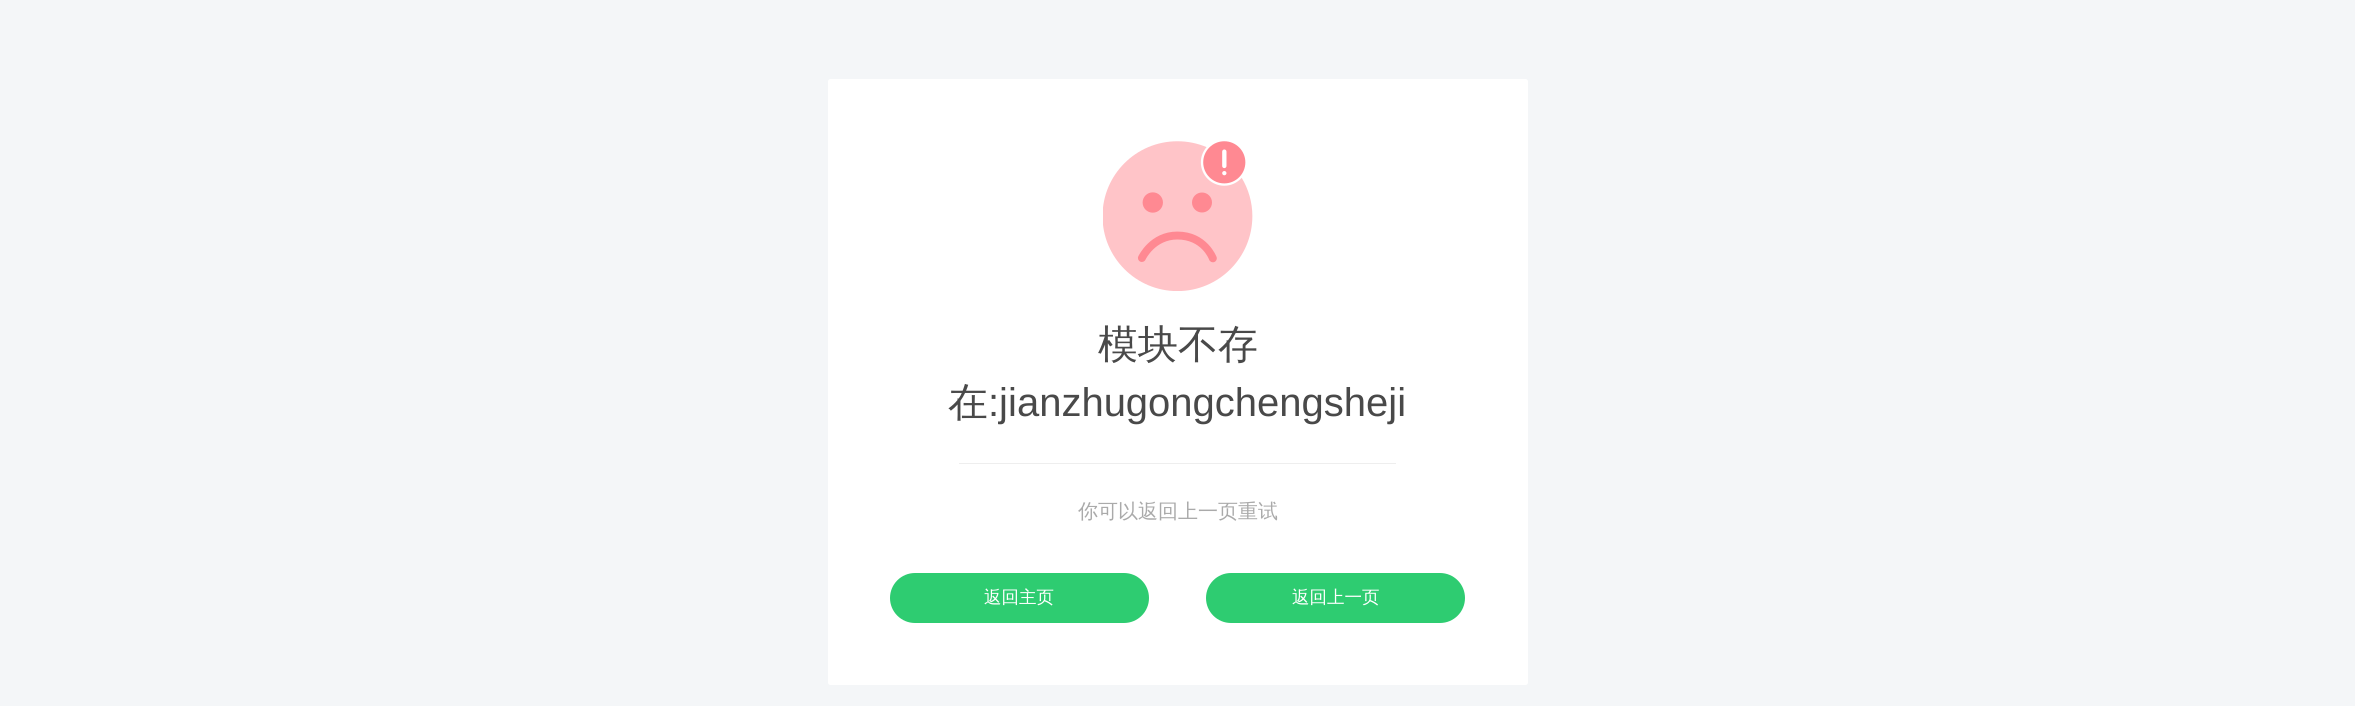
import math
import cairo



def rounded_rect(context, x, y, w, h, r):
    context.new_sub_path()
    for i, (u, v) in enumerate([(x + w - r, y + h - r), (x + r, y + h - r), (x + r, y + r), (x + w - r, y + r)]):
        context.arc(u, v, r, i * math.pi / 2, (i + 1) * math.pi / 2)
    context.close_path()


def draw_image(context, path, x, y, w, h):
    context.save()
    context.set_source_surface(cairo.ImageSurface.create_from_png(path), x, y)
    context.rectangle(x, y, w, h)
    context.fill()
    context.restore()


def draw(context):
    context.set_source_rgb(244 / 255, 246 / 255, 248 / 255)
    context.paint()
    context.set_source_rgb(1, 1, 1)
    rounded_rect(context, 828, 79, 700, 606, 2.5)
    context.fill()
    draw_image(context, "images/1.png", 1103, 141, 150, 150)
    context.set_source_rgb(238 / 255, 238 / 255, 238 / 255)
    context.rectangle(959, 463, 437, 1)
    context.fill()
    context.set_source_rgb(46 / 255, 204 / 255, 113 / 255)
    rounded_rect(context, 890, 573, 259, 50, 25)
    context.fill()
    rounded_rect(context, 1206, 573, 259, 50, 25)
    context.fill()
    context.select_font_face("WenQuanYi Zen Hei Medium")
    context.set_font_size(40)
    context.set_source_rgb(73 / 255, 73 / 255, 73 / 255)
    context.move_to(1098, 358)
    context.show_text("模块不存")
    context.move_to(948, 416)
    context.show_text("在")
    context.select_font_face("Liberation Sans")
    context.move_to(988, 416)
    context.show_text(":jianzhugongchengsheji")
    context.select_font_face("WenQuanYi Zen Hei Medium")
    context.set_font_size(20)
    context.set_source_rgb(170 / 255, 170 / 255, 170 / 255)
    context.move_to(1078, 518)
    context.show_text("你可以返回上一页重试")
    context.set_font_size(17.5)
    context.set_source_rgb(1, 1, 1)
    context.move_to(984, 603)
    context.show_text("返回主页")
    context.move_to(1292, 603)
    context.show_text("返回上一页")


surface = cairo.ImageSurface(cairo.Format.RGB24, 2355, 706)
context = cairo.Context(surface)
options = cairo.FontOptions()
options.set_hint_metrics(cairo.HintMetrics.OFF)
options.set_hint_style(cairo.HintStyle.NONE)
context.set_font_options(options)
context.set_miter_limit(4)
draw(context)
surface.write_to_png("out.png")
